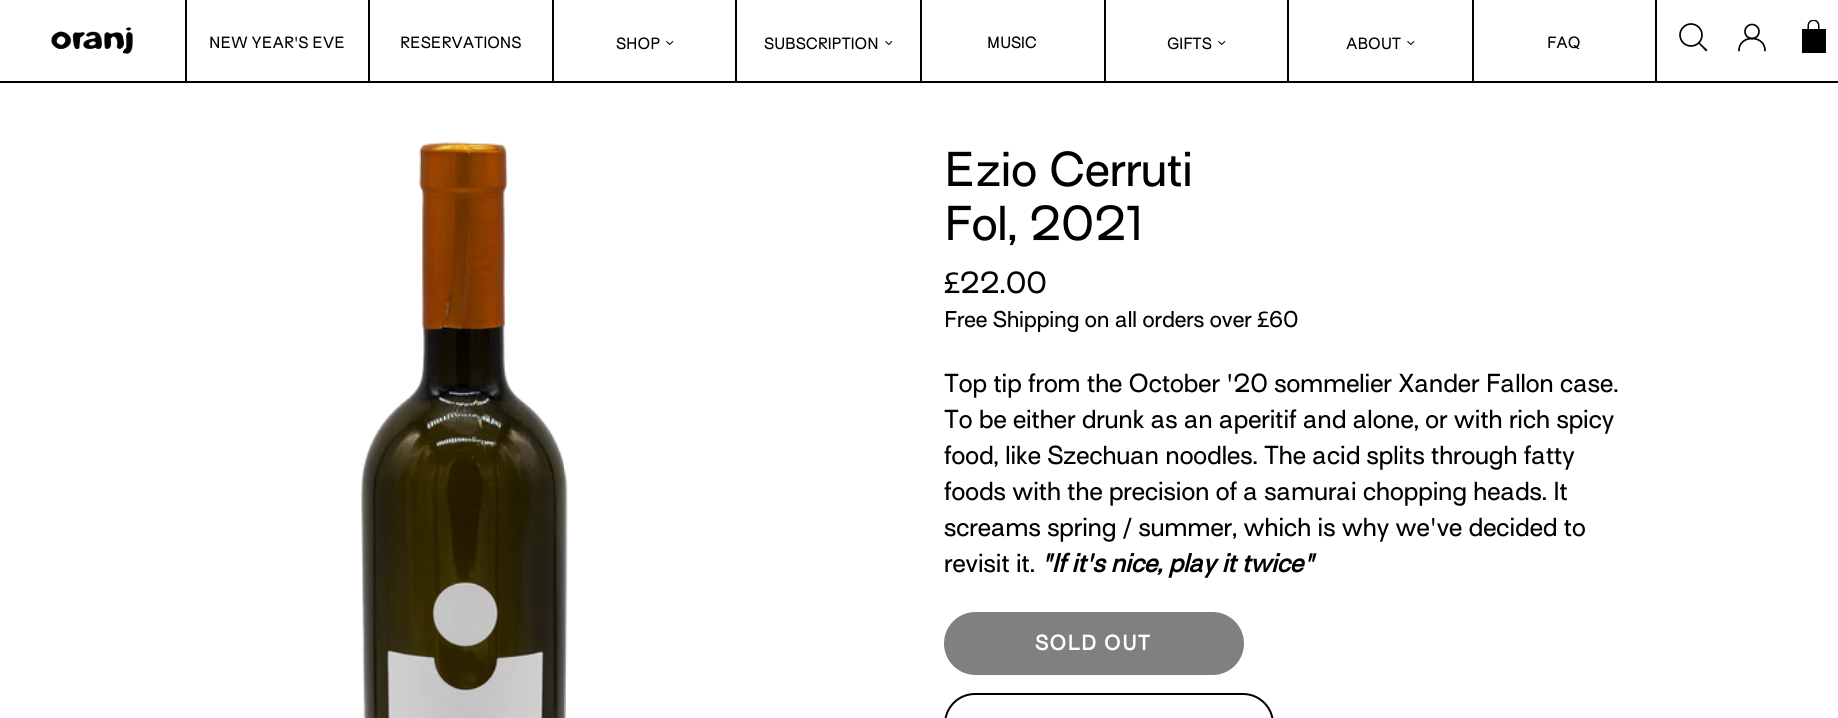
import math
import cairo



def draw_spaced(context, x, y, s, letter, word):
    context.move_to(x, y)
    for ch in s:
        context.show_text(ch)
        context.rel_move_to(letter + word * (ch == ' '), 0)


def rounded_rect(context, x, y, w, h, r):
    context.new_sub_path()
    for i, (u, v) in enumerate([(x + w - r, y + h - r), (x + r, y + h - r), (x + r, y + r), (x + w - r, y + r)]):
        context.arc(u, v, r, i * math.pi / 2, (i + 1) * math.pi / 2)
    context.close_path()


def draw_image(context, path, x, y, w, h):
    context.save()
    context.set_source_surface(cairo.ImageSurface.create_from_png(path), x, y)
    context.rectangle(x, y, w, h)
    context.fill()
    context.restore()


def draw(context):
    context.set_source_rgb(1, 1, 1)
    context.paint()
    context.set_source_rgb(0, 0, 0)
    context.rectangle(0, 81, 1838, 2)
    context.fill()
    draw_image(context, "images/1.png", 51, 27, 82, 27)
    context.rectangle(185, 0, 2, 81)
    context.fill()
    context.rectangle(368, 0, 2, 81)
    context.fill()
    context.rectangle(552, 0, 2, 81)
    context.fill()
    draw_image(context, "images/2.png", 666, 41, 8, 4)
    context.rectangle(735, 0, 2, 81)
    context.fill()
    draw_image(context, "images/2.png", 885, 41, 8, 4)
    context.rectangle(920, 0, 2, 81)
    context.fill()
    context.rectangle(1104, 0, 2, 81)
    context.fill()
    draw_image(context, "images/2.png", 1218, 41, 8, 4)
    context.rectangle(1287, 0, 2, 81)
    context.fill()
    draw_image(context, "images/2.png", 1407, 41, 8, 4)
    context.rectangle(1472, 0, 2, 81)
    context.fill()
    context.rectangle(1655, 0, 2, 81)
    context.fill()
    context.arc(1691, 35, 11, 0, 2 * math.pi)
    context.set_line_width(1.7)
    context.stroke()
    context.set_fill_rule(cairo.FillRule.EVEN_ODD)
    context.new_path()
    context.move_to(1699, 42)
    context.line_to(1707.5, 50)
    context.line_to(1706, 51.5)
    context.line_to(1698, 43)
    context.close_path()
    context.fill()
    context.new_path()
    context.move_to(1739, 50.5)
    context.curve_to(1739, 34.5, 1765, 34.5, 1765, 50.5)
    context.set_line_cap(cairo.LineCap.SQUARE)
    context.stroke()
    context.arc(1752, 31.5, 7, 0, 2 * math.pi)
    context.set_line_cap(cairo.LineCap.BUTT)
    context.stroke()
    draw_image(context, "images/3.png", 1802, 20, 24, 33)
    draw_image(context, "images/4.png", 361, 142, 207, 576)
    context.set_source_rgb(128 / 255, 128 / 255, 128 / 255)
    rounded_rect(context, 945, 613, 298, 61, 30.5)
    context.fill_preserve()
    context.set_line_width(2)
    context.stroke()
    rounded_rect(context, 945, 694, 328, 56, 30)
    context.set_source_rgb(0, 0, 0)
    context.stroke()
    context.select_font_face("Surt")
    context.set_font_size(15)
    context.move_to(209, 48)
    context.show_text("NEW YEAR'S EVE")
    context.move_to(400, 48)
    context.show_text("RESERVATIONS")
    context.move_to(616, 49)
    context.show_text("SHOP")
    context.move_to(764, 49)
    context.show_text("SUBSCRIPTION")
    context.move_to(987, 48)
    context.show_text("MUSIC")
    context.move_to(1167, 49)
    context.show_text("GIFTS")
    context.move_to(1346, 49)
    context.show_text("ABOUT")
    context.move_to(1547, 48)
    context.show_text("FAQ")
    context.set_font_size(45)
    context.move_to(944, 186)
    context.show_text("Ezio Cerruti")
    context.move_to(944, 240)
    context.show_text("Fol, 2021")
    context.set_font_size(28)
    context.move_to(944, 293)
    context.show_text("£22.00")
    context.set_font_size(21)
    context.move_to(944, 327)
    context.show_text("Free Shipping on all orders over £60")
    context.set_font_size(24)
    context.move_to(944, 392)
    context.show_text("Top tip from the October '20 sommelier Xander Fallon case.")
    context.move_to(944, 428)
    context.show_text("To be either drunk as an aperitif and alone, or with rich spicy")
    context.move_to(944, 464)
    context.show_text("food, like Szechuan noodles. The acid splits through fatty")
    context.move_to(944, 500)
    context.show_text("foods with the precision of a samurai chopping heads. It")
    context.move_to(944, 536)
    context.show_text("screams spring / summer, which is why we've decided to")
    context.move_to(944, 572)
    context.show_text("revisit it.")
    context.select_font_face("Surt", cairo.FontSlant.ITALIC, cairo.FontWeight.BOLD)
    context.move_to(1041, 572)
    context.show_text("\"If it's nice, play it twice\"")
    context.select_font_face("Surt", cairo.FontSlant.NORMAL, cairo.FontWeight.BOLD)
    context.set_font_size(19.5)
    context.set_source_rgb(1, 1, 1)
    draw_spaced(context, 1035, 650, "SOLD OUT", 1.5, 0)


surface = cairo.ImageSurface(cairo.Format.RGB24, 1838, 718)
context = cairo.Context(surface)
options = cairo.FontOptions()
options.set_hint_metrics(cairo.HintMetrics.OFF)
options.set_hint_style(cairo.HintStyle.NONE)
context.set_font_options(options)
context.set_miter_limit(4)
draw(context)
surface.write_to_png("out.png")
